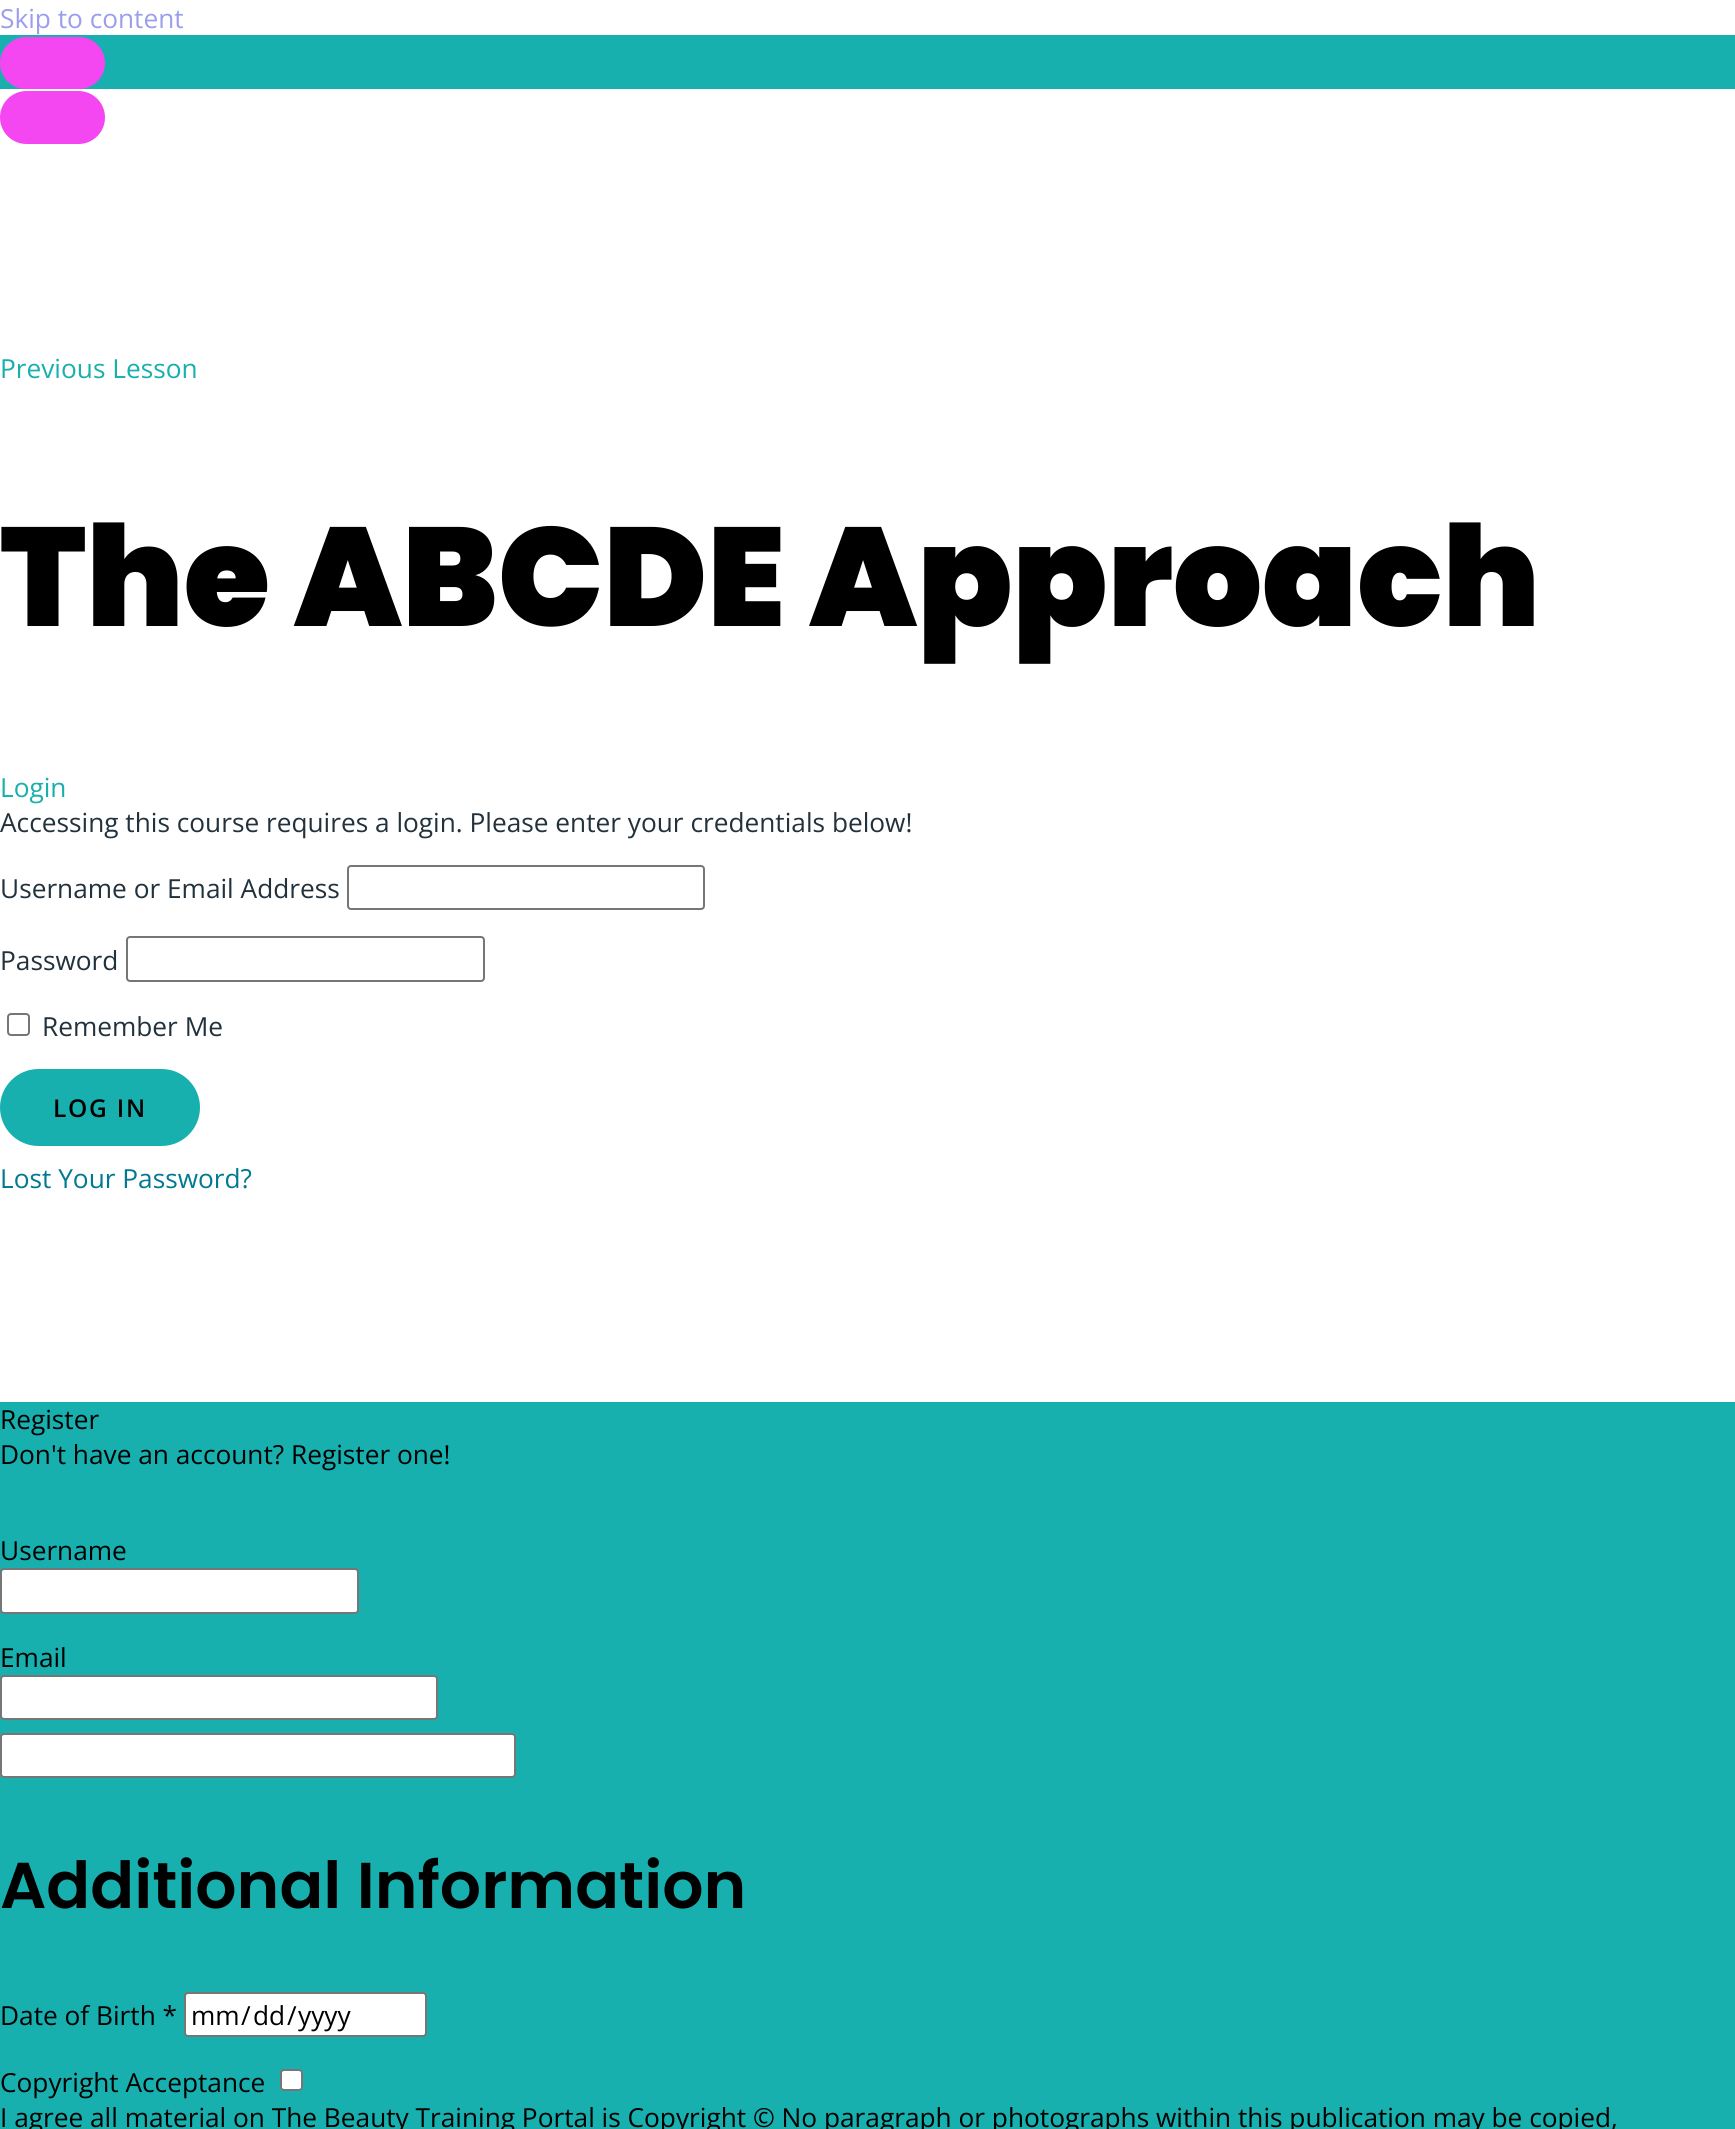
import math
import cairo



def draw_spaced(context, x, y, s, letter, word):
    context.move_to(x, y)
    for ch in s:
        context.show_text(ch)
        context.rel_move_to(letter + word * (ch == ' '), 0)


def rounded_rect(context, x, y, w, h, r):
    context.new_sub_path()
    for i, (u, v) in enumerate([(x + w - r, y + h - r), (x + r, y + h - r), (x + r, y + r), (x + w - r, y + r)]):
        context.arc(u, v, r, i * math.pi / 2, (i + 1) * math.pi / 2)
    context.close_path()


def draw(context):
    context.set_source_rgb(1, 1, 1)
    context.paint()
    context.set_source_rgb(24 / 255, 175 / 255, 175 / 255)
    context.rectangle(0, 35, 1735, 54)
    context.fill()
    context.set_source_rgb(244 / 255, 70 / 255, 241 / 255)
    rounded_rect(context, 0, 37, 105, 52, 26)
    context.fill()
    rounded_rect(context, 0, 91, 105, 53, 26.5)
    context.fill()
    rounded_rect(context, 348, 866, 356, 43, 3)
    context.set_source_rgb(118 / 255, 118 / 255, 118 / 255)
    context.stroke()
    rounded_rect(context, 127, 937, 357, 44, 3)
    context.stroke()
    rounded_rect(context, 8, 1014, 21, 21, 3)
    context.stroke()
    context.set_source_rgb(24 / 255, 175 / 255, 175 / 255)
    rounded_rect(context, 0, 1069, 200, 77, 38.5)
    context.fill()
    context.rectangle(0, 1402, 1735, 727)
    context.fill()
    context.set_source_rgb(1, 1, 1)
    rounded_rect(context, 1, 1569, 357, 44, 3)
    context.fill_preserve()
    context.set_source_rgb(118 / 255, 118 / 255, 118 / 255)
    context.stroke()
    context.set_source_rgb(1, 1, 1)
    rounded_rect(context, 1, 1676, 436, 43, 3)
    context.fill_preserve()
    context.set_source_rgb(118 / 255, 118 / 255, 118 / 255)
    context.stroke()
    context.set_source_rgb(1, 1, 1)
    rounded_rect(context, 1, 1734, 514, 43, 3)
    context.fill_preserve()
    context.set_source_rgb(118 / 255, 118 / 255, 118 / 255)
    context.stroke()
    context.set_source_rgb(1, 1, 1)
    rounded_rect(context, 185, 1993, 241, 43, 3)
    context.fill_preserve()
    context.set_source_rgb(118 / 255, 118 / 255, 118 / 255)
    context.stroke()
    context.set_source_rgb(1, 1, 1)
    rounded_rect(context, 281, 2070, 21, 20, 3)
    context.fill_preserve()
    context.set_source_rgb(118 / 255, 118 / 255, 118 / 255)
    context.stroke()
    context.select_font_face("Open Sans")
    context.set_font_size(26.25)
    context.set_source_rgb(156 / 255, 157 / 255, 237 / 255)
    context.move_to(0, 28)
    context.show_text("Skip to content")
    context.set_source_rgb(24 / 255, 175 / 255, 175 / 255)
    context.move_to(0, 378)
    context.show_text("Previous Lesson")
    context.select_font_face("Poppins Black")
    context.set_font_size(140)
    context.set_source_rgb(0, 0, 0)
    context.move_to(0, 626)
    context.show_text("The ABCDE Approach")
    context.select_font_face("Open Sans")
    context.set_font_size(26.25)
    context.set_source_rgb(24 / 255, 175 / 255, 175 / 255)
    context.move_to(0, 797)
    context.show_text("Login")
    context.set_source_rgb(34 / 255, 50 / 255, 61 / 255)
    context.move_to(0, 832)
    context.show_text("Accessing this course requires a login. Please enter your credentials below!")
    context.move_to(0, 898)
    context.show_text("Username or Email Address")
    context.move_to(0, 970)
    context.show_text("Password")
    context.move_to(42, 1036)
    context.show_text("Remember Me")
    context.select_font_face("Open Sans SemiBold")
    context.set_font_size(24.5)
    context.set_source_rgb(0, 0, 0)
    draw_spaced(context, 53, 1117, "LOG IN", 1.75, 0)
    context.select_font_face("Open Sans")
    context.set_font_size(26.25)
    context.set_source_rgb(0, 121 / 255, 145 / 255)
    context.move_to(0, 1188)
    context.show_text("Lost Your Password?")
    context.set_source_rgb(0, 0, 0)
    context.move_to(0, 1429)
    context.show_text("Register")
    context.move_to(0, 1464)
    context.show_text("Don't have an account? Register one!")
    context.move_to(0, 1560)
    context.show_text("Username")
    context.move_to(0, 1667)
    context.show_text("Email")
    context.select_font_face("Poppins SemiBold")
    context.set_font_size(64.75)
    context.move_to(0, 1908)
    context.show_text("Additional Information")
    context.select_font_face("Open Sans")
    context.set_font_size(26.25)
    context.move_to(0, 2025)
    context.show_text("Date of Birth *")
    context.move_to(191, 2025)
    context.show_text("mm")
    context.move_to(241, 2025)
    context.show_text("/")
    context.move_to(253, 2025)
    context.show_text("dd")
    context.move_to(287, 2025)
    context.show_text("/")
    context.move_to(298, 2025)
    context.show_text("yyyy")
    context.move_to(0, 2092)
    context.show_text("Copyright Acceptance")
    context.move_to(0, 2127)
    context.show_text("I agree all material on The Beauty Training Portal is Copyright © No paragraph or photographs within this publication may be copied,")


surface = cairo.ImageSurface(cairo.Format.RGB24, 1735, 2129)
context = cairo.Context(surface)
options = cairo.FontOptions()
options.set_hint_metrics(cairo.HintMetrics.OFF)
options.set_hint_style(cairo.HintStyle.NONE)
context.set_font_options(options)
context.set_miter_limit(4)
draw(context)
surface.write_to_png("out.png")
